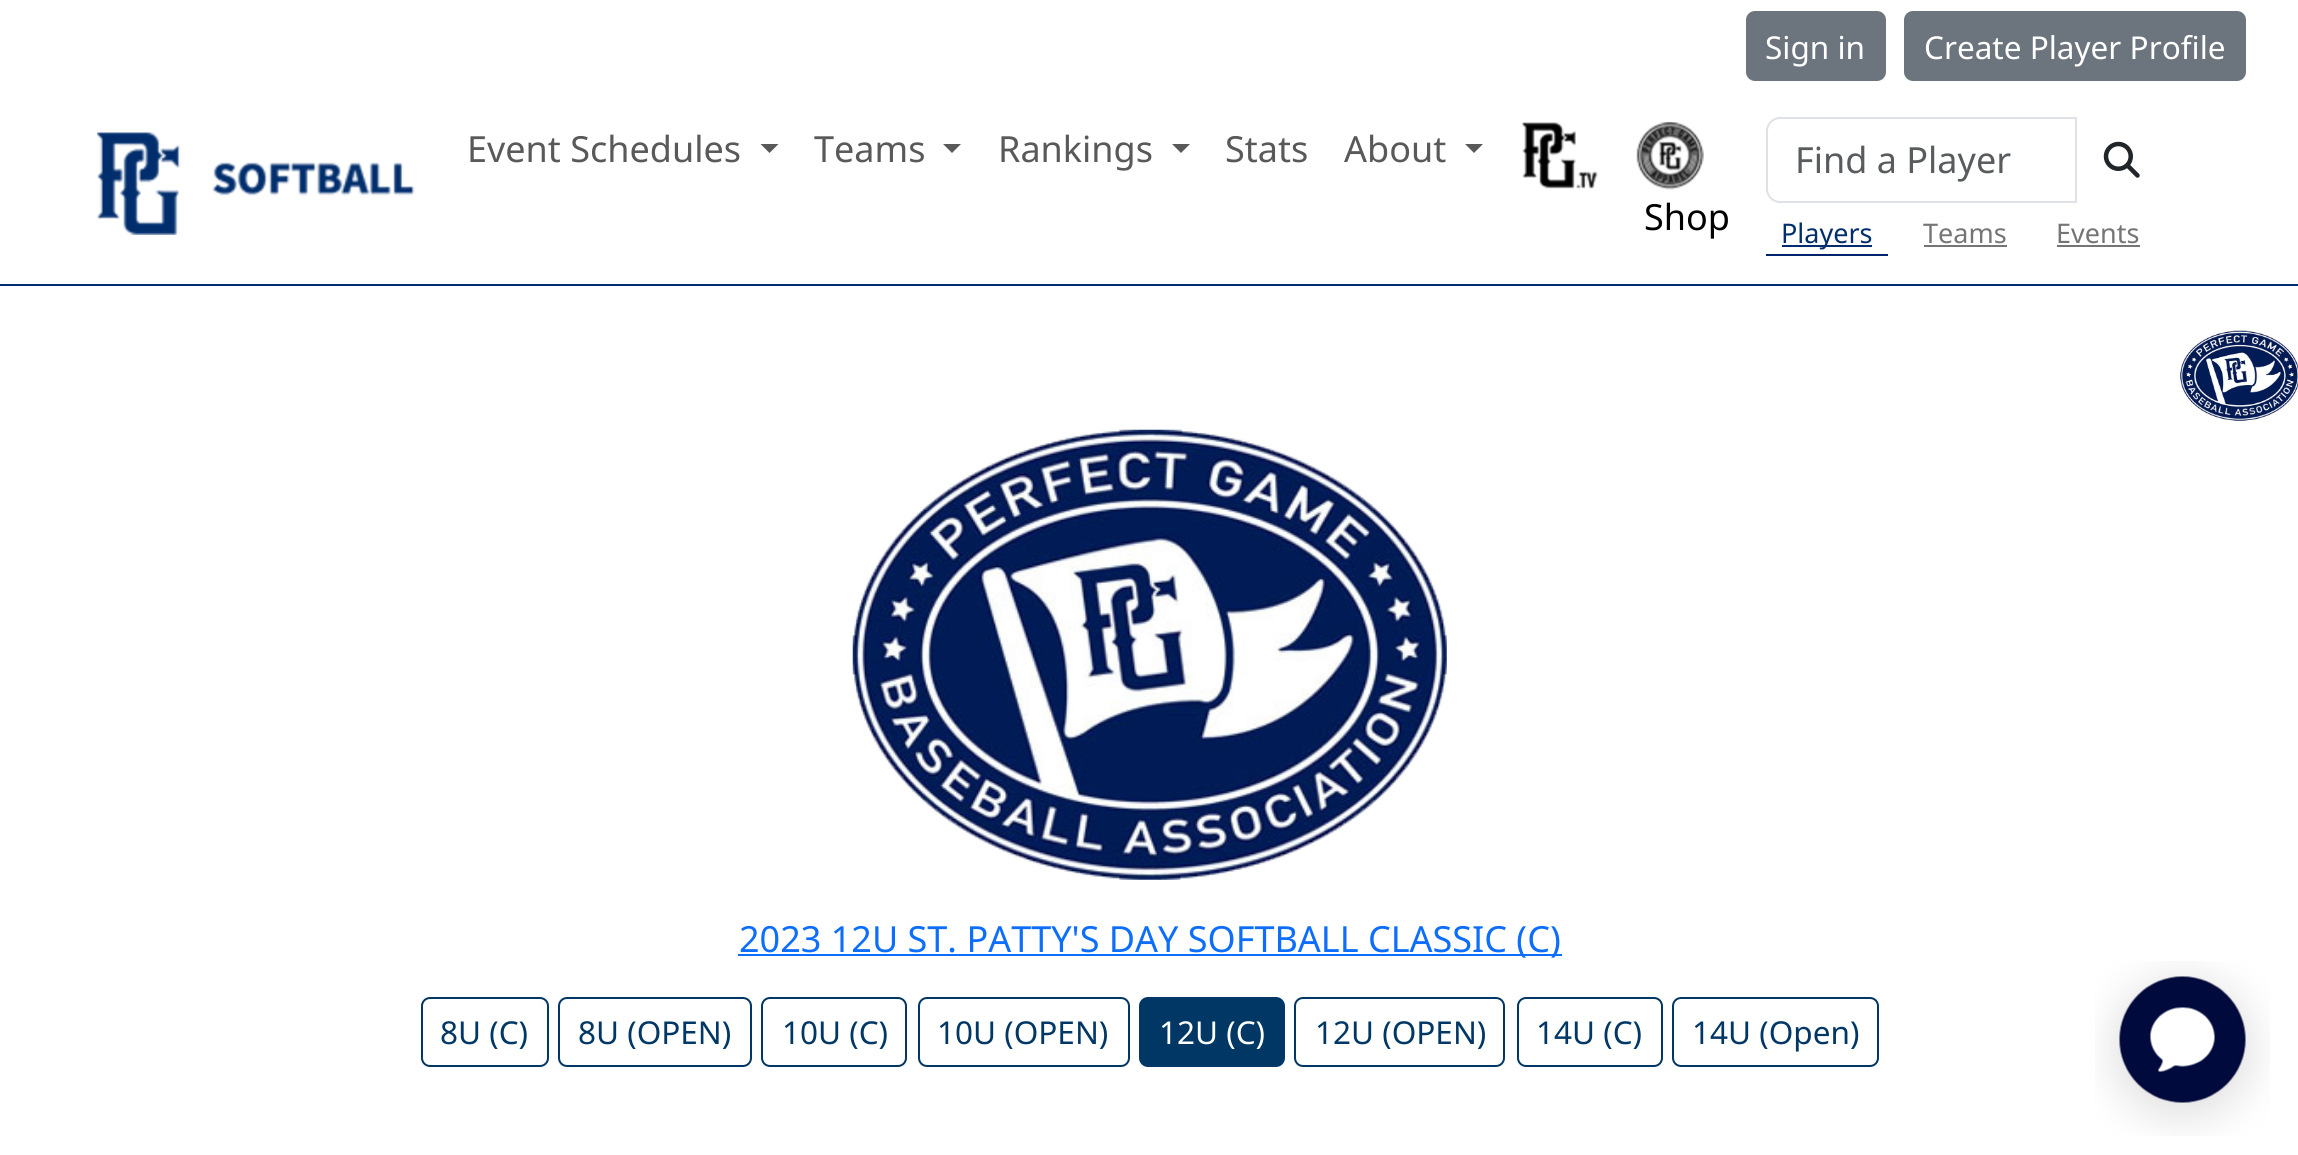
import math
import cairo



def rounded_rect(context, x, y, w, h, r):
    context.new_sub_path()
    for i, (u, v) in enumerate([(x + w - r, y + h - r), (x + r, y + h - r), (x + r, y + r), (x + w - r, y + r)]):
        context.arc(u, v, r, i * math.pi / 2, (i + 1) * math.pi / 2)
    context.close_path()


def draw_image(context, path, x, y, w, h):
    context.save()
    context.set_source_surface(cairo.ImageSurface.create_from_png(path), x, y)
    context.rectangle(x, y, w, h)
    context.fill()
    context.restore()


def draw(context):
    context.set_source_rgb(1, 1, 1)
    context.paint()
    context.set_source_rgb(108 / 255, 117 / 255, 125 / 255)
    rounded_rect(context, 1747, 12, 138, 68, 8)
    context.fill_preserve()
    context.stroke()
    rounded_rect(context, 1905, 12, 340, 68, 8)
    context.fill_preserve()
    context.stroke()
    context.set_source_rgb(0, 46 / 255, 109 / 255)
    context.rectangle(0, 284, 2298, 2)
    context.fill()
    draw_image(context, "images/1.png", 97, 132, 318, 103)
    context.set_source_rgb(89 / 255, 89 / 255, 89 / 255)
    context.new_path()
    context.move_to(760.5, 144)
    context.line_to(778.5, 144)
    context.line_to(769.5, 153)
    context.close_path()
    context.fill()
    context.new_path()
    context.move_to(943, 144)
    context.line_to(961, 144)
    context.line_to(952, 153)
    context.close_path()
    context.fill()
    context.new_path()
    context.move_to(1172, 144)
    context.line_to(1190, 144)
    context.line_to(1181, 153)
    context.close_path()
    context.fill()
    context.new_path()
    context.move_to(1465, 144)
    context.line_to(1483, 144)
    context.line_to(1474, 153)
    context.close_path()
    context.fill()
    draw_image(context, "images/2.png", 1521, 122, 77, 67)
    draw_image(context, "images/3.png", 1636, 122, 68, 68)
    context.new_path()
    context.move_to(1780, 118)
    context.line_to(2076, 118)
    context.line_to(2076, 202)
    context.line_to(1780, 202)
    context.curve_to(1773, 202, 1767, 196, 1767, 189)
    context.line_to(1767, 131)
    context.curve_to(1767, 124, 1773, 118, 1780, 118)
    context.close_path()
    context.set_source_rgb(222 / 255, 226 / 255, 230 / 255)
    context.stroke()
    draw_image(context, "images/4.png", 2103, 141, 37, 37)
    context.set_source_rgb(0, 35 / 255, 109 / 255)
    context.rectangle(1766, 254, 122, 2)
    context.fill()
    context.set_source_rgb(0, 46 / 255, 109 / 255)
    context.rectangle(1782, 245, 90, 2)
    context.fill()
    context.set_source_rgb(117 / 255, 117 / 255, 117 / 255)
    context.rectangle(1924, 245, 83, 2)
    context.fill()
    context.rectangle(2057, 245, 83, 2)
    context.fill()
    draw_image(context, "images/5.png", 2180, 330, 118, 91)
    draw_image(context, "images/6.png", 852, 429, 595, 451)
    context.set_source_rgb(13 / 255, 110 / 255, 253 / 255)
    context.rectangle(738, 954, 824, 2)
    context.fill()
    rounded_rect(context, 422, 998, 126, 68, 8)
    context.set_source_rgb(0, 55 / 255, 100 / 255)
    context.stroke()
    rounded_rect(context, 559, 998, 192, 68, 8)
    context.stroke()
    rounded_rect(context, 762, 998, 144, 68, 8)
    context.stroke()
    rounded_rect(context, 919, 998, 210, 68, 8)
    context.stroke()
    rounded_rect(context, 1140, 998, 144, 68, 8)
    context.fill_preserve()
    context.stroke()
    rounded_rect(context, 1295, 998, 209, 68, 8)
    context.stroke()
    rounded_rect(context, 1518, 998, 144, 68, 8)
    context.stroke()
    rounded_rect(context, 1673, 998, 205, 68, 8)
    context.stroke()
    draw_image(context, "images/7.png", 2095, 961, 175, 175)
    context.select_font_face("Noto Sans")
    context.set_font_size(31.5)
    context.set_source_rgb(1, 1, 1)
    context.move_to(1765, 59)
    context.show_text("Sign in")
    context.move_to(1924, 59)
    context.show_text("Create Player Profile")
    context.set_font_size(36)
    context.set_source_rgb(89 / 255, 89 / 255, 89 / 255)
    context.move_to(467, 162)
    context.show_text("Event Schedules")
    context.move_to(814, 162)
    context.show_text("Teams")
    context.move_to(998, 162)
    context.show_text("Rankings")
    context.move_to(1225, 162)
    context.show_text("Stats")
    context.move_to(1344, 162)
    context.show_text("About")
    context.set_source_rgb(0, 0, 0)
    context.move_to(1644, 230)
    context.show_text("Shop")
    context.set_source_rgb(89 / 255, 92 / 255, 95 / 255)
    context.move_to(1795, 173)
    context.show_text("Find a Player")
    context.set_font_size(27)
    context.set_source_rgb(0, 46 / 255, 109 / 255)
    context.move_to(1781, 243)
    context.show_text("Players")
    context.set_source_rgb(117 / 255, 117 / 255, 117 / 255)
    context.move_to(1923, 243)
    context.show_text("Teams")
    context.move_to(2056, 243)
    context.show_text("Events")
    context.set_font_size(36)
    context.set_source_rgb(13 / 255, 110 / 255, 253 / 255)
    context.move_to(739, 952)
    context.show_text("2023 12U ST. PATTY'S DAY SOFTBALL CLASSIC (C)")
    context.set_font_size(31.5)
    context.set_source_rgb(0, 55 / 255, 100 / 255)
    context.move_to(440, 1044)
    context.show_text("8U (C)")
    context.move_to(578, 1044)
    context.show_text("8U (OPEN)")
    context.move_to(782, 1044)
    context.show_text("10U (C)")
    context.move_to(937, 1044)
    context.show_text("10U (OPEN)")
    context.set_source_rgb(1, 1, 1)
    context.move_to(1159, 1044)
    context.show_text("12U (C)")
    context.set_source_rgb(0, 55 / 255, 100 / 255)
    context.move_to(1315, 1044)
    context.show_text("12U (OPEN)")
    context.move_to(1536, 1044)
    context.show_text("14U (C)")
    context.move_to(1692, 1044)
    context.show_text("14U (Open)")


surface = cairo.ImageSurface(cairo.Format.RGB24, 2298, 1155)
context = cairo.Context(surface)
options = cairo.FontOptions()
options.set_hint_metrics(cairo.HintMetrics.OFF)
options.set_hint_style(cairo.HintStyle.NONE)
context.set_font_options(options)
context.set_miter_limit(4)
draw(context)
surface.write_to_png("out.png")
